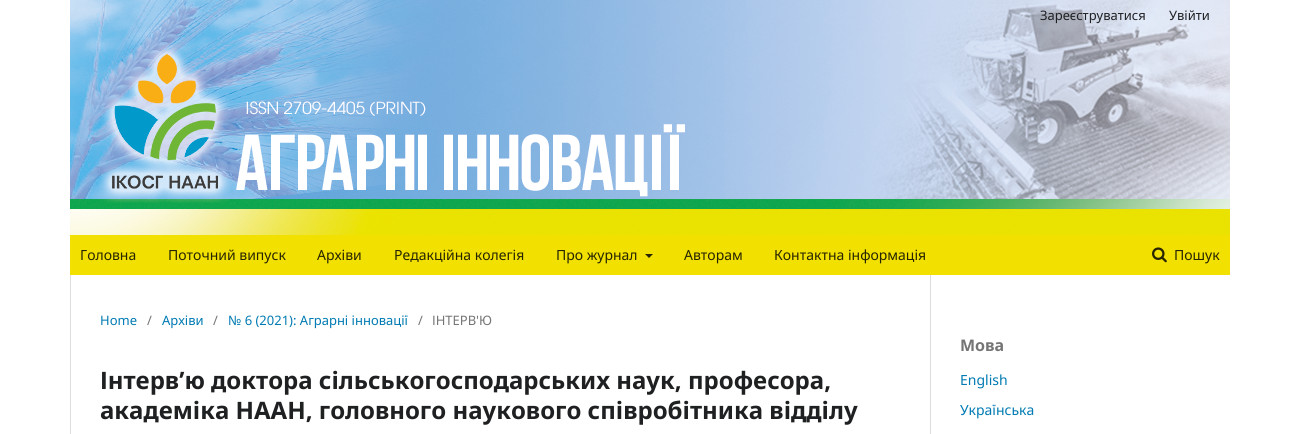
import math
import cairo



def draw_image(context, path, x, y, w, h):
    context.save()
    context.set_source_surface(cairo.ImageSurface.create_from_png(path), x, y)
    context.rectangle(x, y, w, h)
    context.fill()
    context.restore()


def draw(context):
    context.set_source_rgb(1, 1, 1)
    context.paint()
    draw_image(context, "images/1.png", 70, 0, 1160, 235)
    context.set_source_rgb(242 / 255, 225 / 255, 0)
    context.rectangle(70, 235, 1160, 40)
    context.fill()
    context.set_source_rgb(39 / 255, 36 / 255, 0)
    context.new_path()
    context.move_to(645, 254)
    context.line_to(653, 254)
    context.line_to(649, 258)
    context.close_path()
    context.fill()
    draw_image(context, "images/2.png", 1152, 247, 15, 16)
    context.set_source_rgb(221 / 255, 221 / 255, 221 / 255)
    context.rectangle(70, 275, 1, 159)
    context.fill()
    context.rectangle(930, 275, 1, 159)
    context.fill()
    context.select_font_face("Noto Sans")
    context.set_font_size(13)
    context.set_source_rgb(31 / 255, 32 / 255, 34 / 255)
    context.move_to(1040, 20)
    context.show_text("Зареєструватися")
    context.move_to(1169, 20)
    context.show_text("Увійти")
    context.set_font_size(14)
    context.set_source_rgb(39 / 255, 36 / 255, 0)
    context.move_to(80, 260)
    context.show_text("Головна")
    context.move_to(168, 260)
    context.show_text("Поточний випуск")
    context.move_to(317, 260)
    context.show_text("Архіви")
    context.move_to(394, 260)
    context.show_text("Редакцiйна колегiя")
    context.move_to(556, 260)
    context.show_text("Про журнал")
    context.move_to(684, 260)
    context.show_text("Авторам")
    context.move_to(774, 260)
    context.show_text("Контактна інформація")
    context.move_to(1174, 260)
    context.show_text("Пошук")
    context.set_font_size(13)
    context.set_source_rgb(0, 122 / 255, 178 / 255)
    context.move_to(100, 325)
    context.show_text("Home")
    context.set_source_rgb(117 / 255, 117 / 255, 117 / 255)
    context.move_to(147, 325)
    context.show_text("/")
    context.set_source_rgb(0, 122 / 255, 178 / 255)
    context.move_to(162, 325)
    context.show_text("Архіви")
    context.set_source_rgb(117 / 255, 117 / 255, 117 / 255)
    context.move_to(213, 325)
    context.show_text("/")
    context.set_source_rgb(0, 122 / 255, 178 / 255)
    context.move_to(228, 325)
    context.show_text("№ 6 (2021): Аграрні інновації")
    context.set_source_rgb(117 / 255, 117 / 255, 117 / 255)
    context.move_to(418, 325)
    context.show_text("/")
    context.move_to(432, 325)
    context.show_text("ІНТЕРВ'Ю")
    context.select_font_face("Noto Sans", cairo.FontSlant.NORMAL, cairo.FontWeight.BOLD)
    context.set_font_size(24)
    context.set_source_rgb(31 / 255, 32 / 255, 34 / 255)
    context.move_to(100, 389)
    context.show_text("Інтерв’ю доктора сільськогосподарських наук, професора,")
    context.move_to(100, 419)
    context.show_text("академіка НААН, головного наукового співробітника відділу")
    context.set_font_size(16)
    context.set_source_rgb(117 / 255, 117 / 255, 117 / 255)
    context.move_to(960, 351)
    context.show_text("Мова")
    context.select_font_face("Noto Sans")
    context.set_font_size(14)
    context.set_source_rgb(0, 122 / 255, 178 / 255)
    context.move_to(960, 385)
    context.show_text("English")
    context.move_to(960, 415)
    context.show_text("Українська")


surface = cairo.ImageSurface(cairo.Format.RGB24, 1300, 434)
context = cairo.Context(surface)
options = cairo.FontOptions()
options.set_hint_metrics(cairo.HintMetrics.OFF)
options.set_hint_style(cairo.HintStyle.NONE)
context.set_font_options(options)
context.set_miter_limit(4)
draw(context)
surface.write_to_png("out.png")
